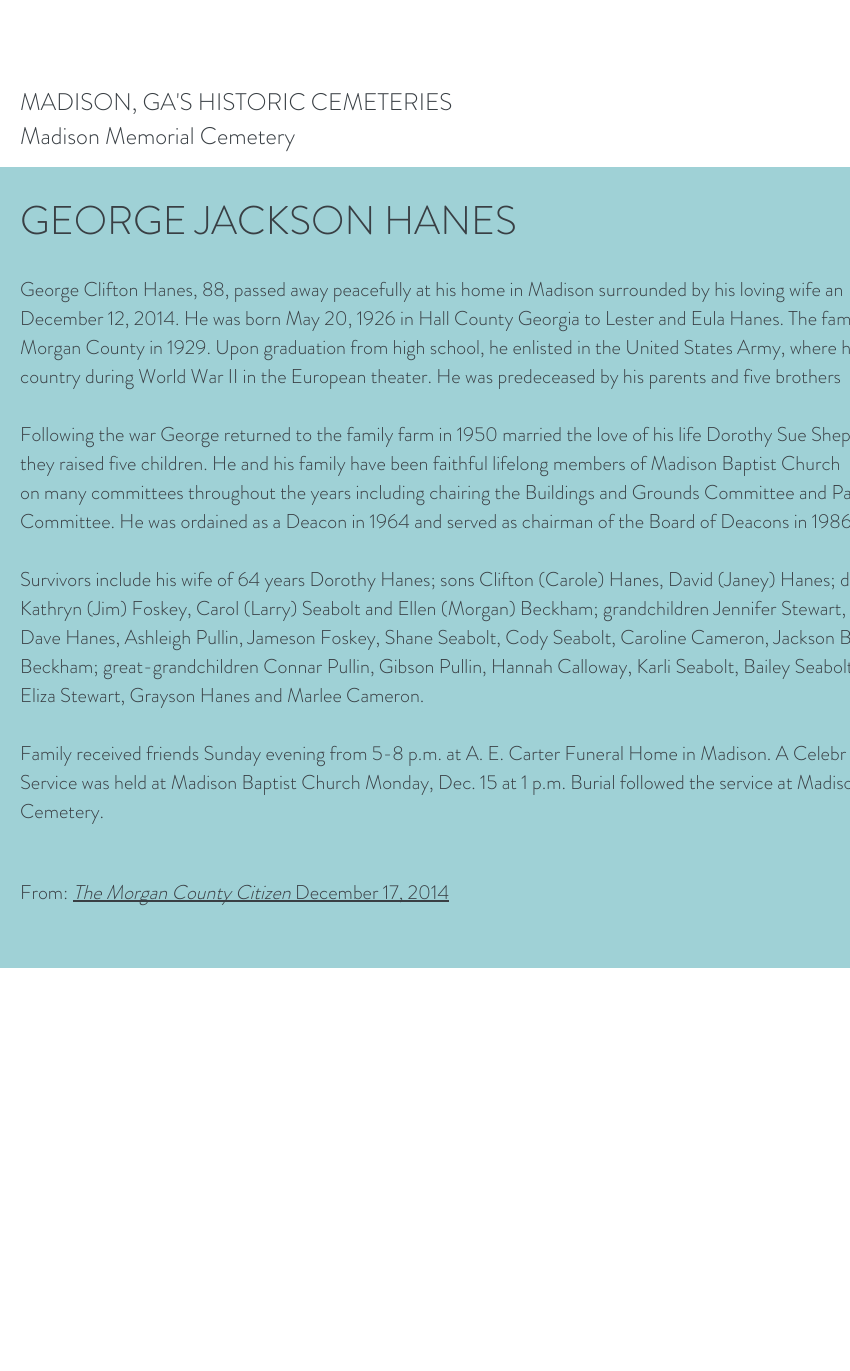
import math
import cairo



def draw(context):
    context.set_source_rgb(1, 1, 1)
    context.paint()
    context.set_source_rgb(159 / 255, 209 / 255, 214 / 255)
    context.rectangle(0, 167, 850, 801)
    context.fill()
    context.set_source_rgb(57 / 255, 63 / 255, 68 / 255)
    context.rectangle(73, 900, 217, 2)
    context.fill()
    context.rectangle(290, 900, 159, 2)
    context.fill()
    context.select_font_face("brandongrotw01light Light")
    context.set_font_size(24)
    context.move_to(20, 110)
    context.show_text("MADISON, GA'S HISTORIC CEMETERIES")
    context.move_to(20, 144)
    context.show_text("Madison Memorial Cemetery")
    context.set_font_size(40)
    context.move_to(20, 234)
    context.show_text("GEORGE JACKSON HANES")
    context.set_font_size(20)
    context.move_to(20, 296)
    context.show_text("George Clifton Hanes, 88, passed away peacefully at his home in Madison surrounded by his loving wife an")
    context.move_to(20, 325)
    context.show_text("December 12, 2014. He was born May 20, 1926 in Hall County Georgia to Lester and Eula Hanes. The fam")
    context.move_to(20, 354)
    context.show_text("Morgan County in 1929. Upon graduation from high school, he enlisted in the United States Army, where h")
    context.move_to(20, 383)
    context.show_text("country during World War II in the European theater. He was predeceased by his parents and five brothers")
    context.move_to(20, 441)
    context.show_text("Following the war George returned to the family farm in 1950 married the love of his life Dorothy Sue Shep")
    context.move_to(20, 470)
    context.show_text("they raised five children. He and his family have been faithful lifelong members of Madison Baptist Church")
    context.move_to(20, 499)
    context.show_text("on many committees throughout the years including chairing the Buildings and Grounds Committee and Pa")
    context.move_to(20, 528)
    context.show_text("Committee. He was ordained as a Deacon in 1964 and served as chairman of the Board of Deacons in 1986")
    context.move_to(20, 586)
    context.show_text("Survivors include his wife of 64 years Dorothy Hanes; sons Clifton (Carole) Hanes, David (Janey) Hanes; d")
    context.move_to(20, 615)
    context.show_text("Kathryn (Jim) Foskey, Carol (Larry) Seabolt and Ellen (Morgan) Beckham; grandchildren Jennifer Stewart,")
    context.move_to(20, 644)
    context.show_text("Dave Hanes, Ashleigh Pullin, Jameson Foskey, Shane Seabolt, Cody Seabolt, Caroline Cameron, Jackson B")
    context.move_to(20, 673)
    context.show_text("Beckham; great-grandchildren Connar Pullin, Gibson Pullin, Hannah Calloway, Karli Seabolt, Bailey Seabolt")
    context.move_to(20, 702)
    context.show_text("Eliza Stewart, Grayson Hanes and Marlee Cameron.")
    context.move_to(20, 760)
    context.show_text("Family received friends Sunday evening from 5-8 p.m. at A. E. Carter Funeral Home in Madison. A Celebr")
    context.move_to(20, 789)
    context.show_text("Service was held at Madison Baptist Church Monday, Dec. 15 at 1 p.m. Burial followed the service at Madiso")
    context.move_to(20, 818)
    context.show_text("Cemetery.")
    context.move_to(20, 899)
    context.show_text("From:")
    context.select_font_face("brandongrotw01light Light", cairo.FontSlant.ITALIC)
    context.move_to(73, 899)
    context.show_text("The Morgan County Citizen")
    context.select_font_face("brandongrotw01light Light")
    context.move_to(295, 899)
    context.show_text("December 17, 2014")


surface = cairo.ImageSurface(cairo.Format.RGB24, 850, 1371)
context = cairo.Context(surface)
options = cairo.FontOptions()
options.set_hint_metrics(cairo.HintMetrics.OFF)
options.set_hint_style(cairo.HintStyle.NONE)
context.set_font_options(options)
context.set_miter_limit(4)
draw(context)
surface.write_to_png("out.png")
